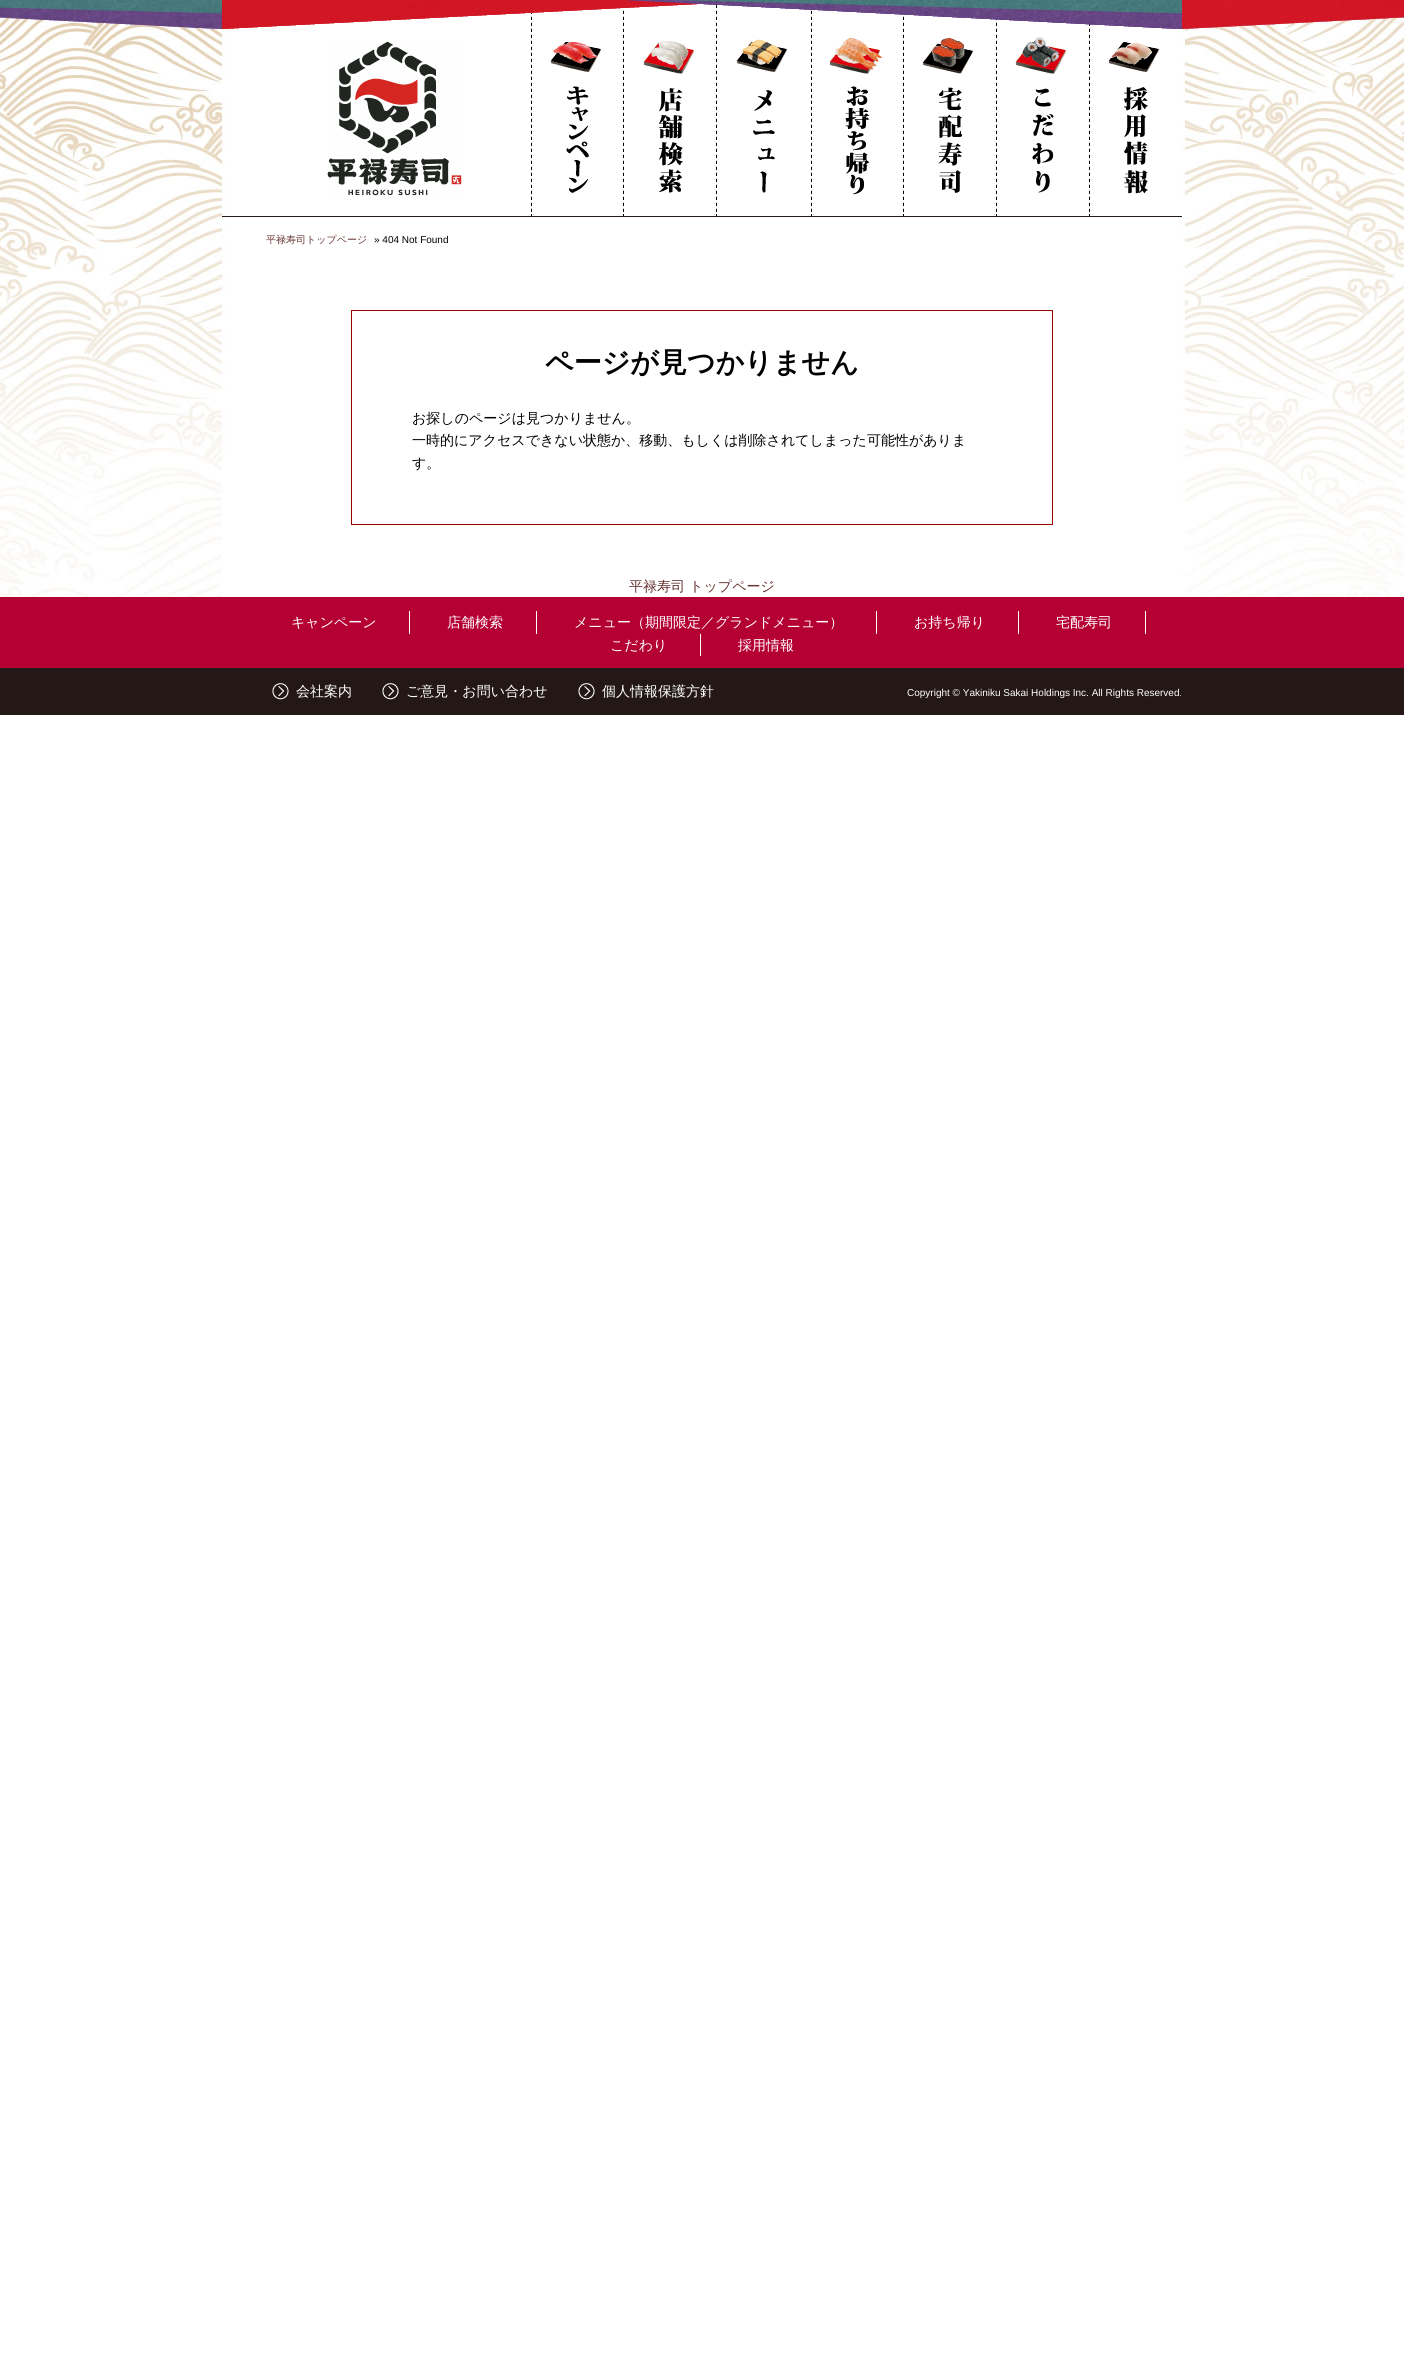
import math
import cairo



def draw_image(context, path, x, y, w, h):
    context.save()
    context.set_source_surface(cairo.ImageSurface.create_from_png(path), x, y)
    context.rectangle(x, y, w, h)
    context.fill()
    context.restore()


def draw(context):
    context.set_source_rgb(1, 1, 1)
    context.paint()
    draw_image(context, "images/1.png", 0, 0, 1404, 597)
    draw_image(context, "images/2.png", 222, 0, 309, 29)
    context.set_source_rgb(35 / 255, 24 / 255, 22 / 255)
    context.rectangle(222, 216, 960, 1)
    context.fill()
    draw_image(context, "images/3.png", 327, 41, 135, 155)
    draw_image(context, "images/4.png", 531, 0, 651, 216)
    context.rectangle(351.5, 310.5, 701, 214)
    context.set_source_rgb(151 / 255, 1 / 255, 0)
    context.set_line_width(1)
    context.stroke()
    context.set_source_rgb(35 / 255, 24 / 255, 22 / 255)
    context.rectangle(0, 668, 1404, 47)
    context.fill()
    context.set_source_rgb(181 / 255, 0, 52 / 255)
    context.rectangle(0, 597, 1404, 71)
    context.fill()
    context.set_source_rgb(1, 1, 1)
    context.rectangle(409, 611, 1, 23)
    context.fill()
    context.rectangle(536, 611, 1, 23)
    context.fill()
    context.rectangle(876, 611, 1, 23)
    context.fill()
    context.rectangle(1018, 611, 1, 23)
    context.fill()
    context.rectangle(1145, 611, 1, 23)
    context.fill()
    context.rectangle(700, 634, 1, 22)
    context.fill()
    draw_image(context, "images/5.png", 272, 683, 17, 17)
    draw_image(context, "images/5.png", 382, 683, 17, 17)
    draw_image(context, "images/5.png", 578, 683, 17, 17)
    context.select_font_face("WenQuanYi Zen Hei Medium")
    context.set_font_size(10)
    context.set_source_rgb(102 / 255, 51 / 255, 50 / 255)
    context.move_to(266, 243)
    context.show_text("平禄寿司トップページ")
    context.select_font_face("Liberation Sans")
    context.set_source_rgb(0, 0, 0)
    context.move_to(374, 243)
    context.show_text("» 404 Not Found")
    context.select_font_face("WenQuanYi Zen Hei", cairo.FontSlant.NORMAL, cairo.FontWeight.BOLD)
    context.set_font_size(28)
    context.move_to(545, 372)
    context.show_text("ページが見つかりません")
    context.select_font_face("WenQuanYi Zen Hei Medium")
    context.set_font_size(14)
    context.move_to(412, 423)
    context.show_text("お探しのページは見つかりません。")
    context.move_to(412, 445)
    context.show_text("一時的にアクセスできない状態か、移動、もしくは削除されてしまった可能性がありま")
    context.move_to(412, 468)
    context.show_text("す。")
    context.set_source_rgb(102 / 255, 51 / 255, 50 / 255)
    context.move_to(629, 591)
    context.show_text("平禄寿司 トップページ")
    context.set_source_rgb(1, 1, 1)
    context.move_to(291, 627)
    context.show_text("キャンペーン")
    context.move_to(447, 627)
    context.show_text("店舗検索")
    context.move_to(574, 627)
    context.show_text("メニュー（期間限定／グランドメニュー）")
    context.move_to(914, 627)
    context.show_text("お持ち帰り")
    context.move_to(1056, 627)
    context.show_text("宅配寿司")
    context.move_to(610, 650)
    context.show_text("こだわり")
    context.move_to(738, 650)
    context.show_text("採用情報")
    context.move_to(296, 696)
    context.show_text("会社案内")
    context.move_to(406, 696)
    context.show_text("ご意見・お問い合わせ")
    context.move_to(602, 696)
    context.show_text("個人情報保護方針")
    context.select_font_face("Liberation Sans")
    context.set_font_size(10)
    context.move_to(907, 696)
    context.show_text("Copyright © Yakiniku Sakai Holdings Inc. All Rights Reserved.")


surface = cairo.ImageSurface(cairo.Format.RGB24, 1404, 2380)
context = cairo.Context(surface)
options = cairo.FontOptions()
options.set_hint_metrics(cairo.HintMetrics.OFF)
options.set_hint_style(cairo.HintStyle.NONE)
context.set_font_options(options)
context.set_miter_limit(4)
draw(context)
surface.write_to_png("out.png")
